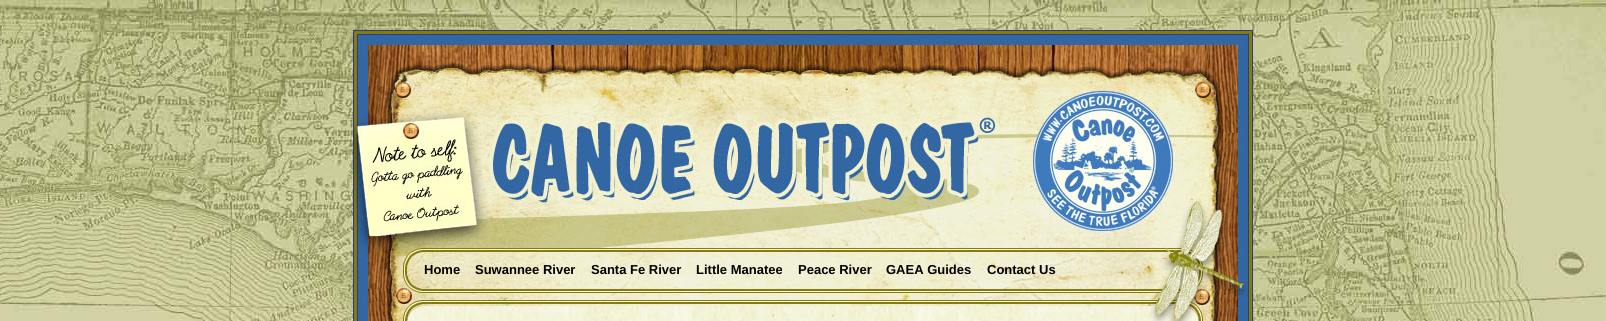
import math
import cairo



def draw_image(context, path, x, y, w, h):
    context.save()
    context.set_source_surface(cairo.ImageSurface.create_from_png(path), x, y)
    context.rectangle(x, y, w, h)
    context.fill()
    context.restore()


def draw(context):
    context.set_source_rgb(1, 1, 1)
    context.paint()
    draw_image(context, "images/1.png", 0, 0, 1606, 321)
    draw_image(context, "images/2.png", 353, 30, 900, 291)
    context.select_font_face("Liberation Sans", cairo.FontSlant.NORMAL, cairo.FontWeight.BOLD)
    context.set_font_size(13)
    context.set_source_rgb(0, 0, 0)
    context.move_to(424, 274)
    context.show_text("Home")
    context.move_to(475, 274)
    context.show_text("Suwannee River")
    context.move_to(591, 274)
    context.show_text("Santa Fe River")
    context.move_to(696, 274)
    context.show_text("Little Manatee")
    context.move_to(798, 274)
    context.show_text("Peace River")
    context.move_to(886, 274)
    context.show_text("GAEA Guides")
    context.move_to(987, 274)
    context.show_text("Contact Us")


surface = cairo.ImageSurface(cairo.Format.RGB24, 1606, 321)
context = cairo.Context(surface)
options = cairo.FontOptions()
options.set_hint_metrics(cairo.HintMetrics.OFF)
options.set_hint_style(cairo.HintStyle.NONE)
context.set_font_options(options)
context.set_miter_limit(4)
draw(context)
surface.write_to_png("out.png")
